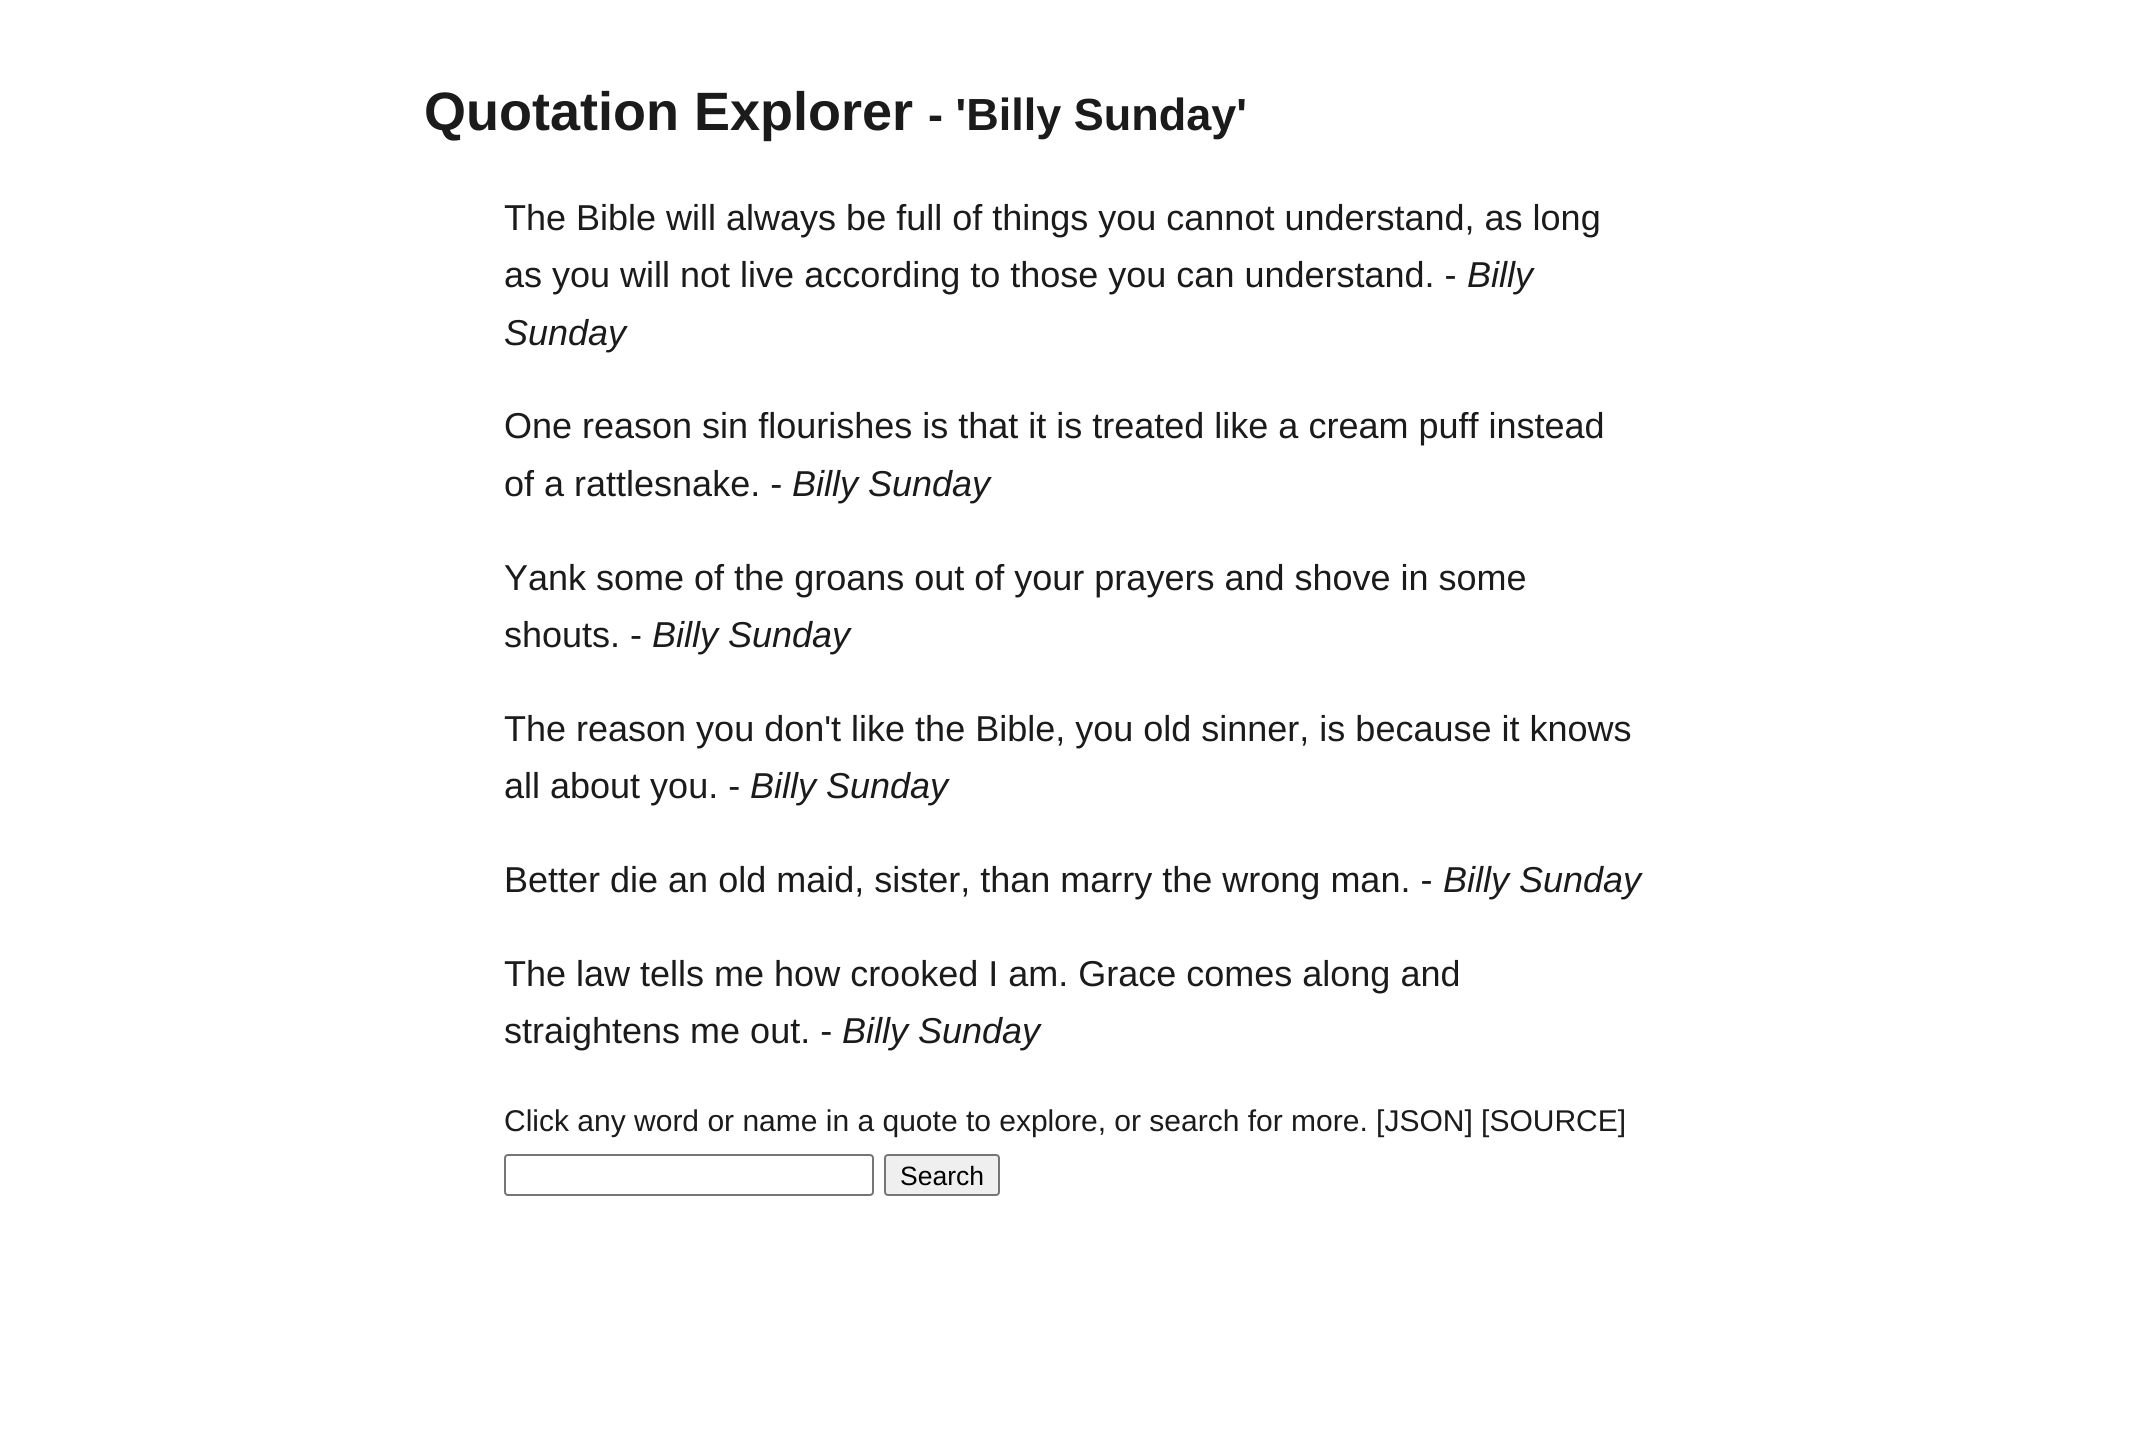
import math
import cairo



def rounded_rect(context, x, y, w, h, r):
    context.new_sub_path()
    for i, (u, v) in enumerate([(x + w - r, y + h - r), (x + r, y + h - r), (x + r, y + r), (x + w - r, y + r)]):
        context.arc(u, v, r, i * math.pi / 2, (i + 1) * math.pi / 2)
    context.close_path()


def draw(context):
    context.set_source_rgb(1, 1, 1)
    context.paint()
    rounded_rect(context, 505, 1155, 368, 40, 3)
    context.set_source_rgb(118 / 255, 118 / 255, 118 / 255)
    context.stroke()
    context.set_source_rgb(239 / 255, 239 / 255, 239 / 255)
    rounded_rect(context, 885, 1155, 114, 40, 3)
    context.fill_preserve()
    context.set_source_rgb(118 / 255, 118 / 255, 118 / 255)
    context.stroke()
    context.select_font_face("Liberation Sans", cairo.FontSlant.NORMAL, cairo.FontWeight.BOLD)
    context.set_font_size(54)
    context.set_source_rgb(27 / 255, 27 / 255, 27 / 255)
    context.move_to(424, 130)
    context.show_text("Quotation Explorer")
    context.set_font_size(45)
    context.move_to(928, 130)
    context.show_text("- 'Billy Sunday'")
    context.select_font_face("Liberation Sans")
    context.set_font_size(36)
    context.move_to(504, 230)
    context.show_text("The Bible will always be full of things you cannot understand, as long")
    context.move_to(504, 287)
    context.show_text("as you will not live according to those you can understand. -")
    context.select_font_face("Liberation Sans", cairo.FontSlant.ITALIC)
    context.move_to(1467, 287)
    context.show_text("Billy")
    context.move_to(504, 345)
    context.show_text("Sunday")
    context.select_font_face("Liberation Sans")
    context.move_to(504, 438)
    context.show_text("One reason sin flourishes is that it is treated like a cream puff instead")
    context.move_to(504, 496)
    context.show_text("of a rattlesnake. -")
    context.select_font_face("Liberation Sans", cairo.FontSlant.ITALIC)
    context.move_to(792, 496)
    context.show_text("Billy Sunday")
    context.select_font_face("Liberation Sans")
    context.move_to(504, 590)
    context.show_text("Yank some of the groans out of your prayers and shove in some")
    context.move_to(504, 647)
    context.show_text("shouts. -")
    context.select_font_face("Liberation Sans", cairo.FontSlant.ITALIC)
    context.move_to(652, 647)
    context.show_text("Billy Sunday")
    context.select_font_face("Liberation Sans")
    context.move_to(504, 741)
    context.show_text("The reason you don't like the Bible, you old sinner, is because it knows")
    context.move_to(504, 798)
    context.show_text("all about you. -")
    context.select_font_face("Liberation Sans", cairo.FontSlant.ITALIC)
    context.move_to(750, 798)
    context.show_text("Billy Sunday")
    context.select_font_face("Liberation Sans")
    context.move_to(504, 892)
    context.show_text("Better die an old maid, sister, than marry the wrong man. -")
    context.select_font_face("Liberation Sans", cairo.FontSlant.ITALIC)
    context.move_to(1443, 892)
    context.show_text("Billy Sunday")
    context.select_font_face("Liberation Sans")
    context.move_to(504, 986)
    context.show_text("The law tells me how crooked I am. Grace comes along and")
    context.move_to(504, 1043)
    context.show_text("straightens me out. -")
    context.select_font_face("Liberation Sans", cairo.FontSlant.ITALIC)
    context.move_to(842, 1043)
    context.show_text("Billy Sunday")
    context.select_font_face("Liberation Sans")
    context.set_font_size(30)
    context.move_to(504, 1131)
    context.show_text("Click any word or name in a quote to explore, or search for more. [JSON] [SOURCE]")
    context.set_font_size(26.5)
    context.set_source_rgb(0, 0, 0)
    context.move_to(900, 1185)
    context.show_text("Search")


surface = cairo.ImageSurface(cairo.Format.RGB24, 2148, 1452)
context = cairo.Context(surface)
options = cairo.FontOptions()
options.set_hint_metrics(cairo.HintMetrics.OFF)
options.set_hint_style(cairo.HintStyle.NONE)
context.set_font_options(options)
context.set_miter_limit(4)
draw(context)
surface.write_to_png("out.png")
